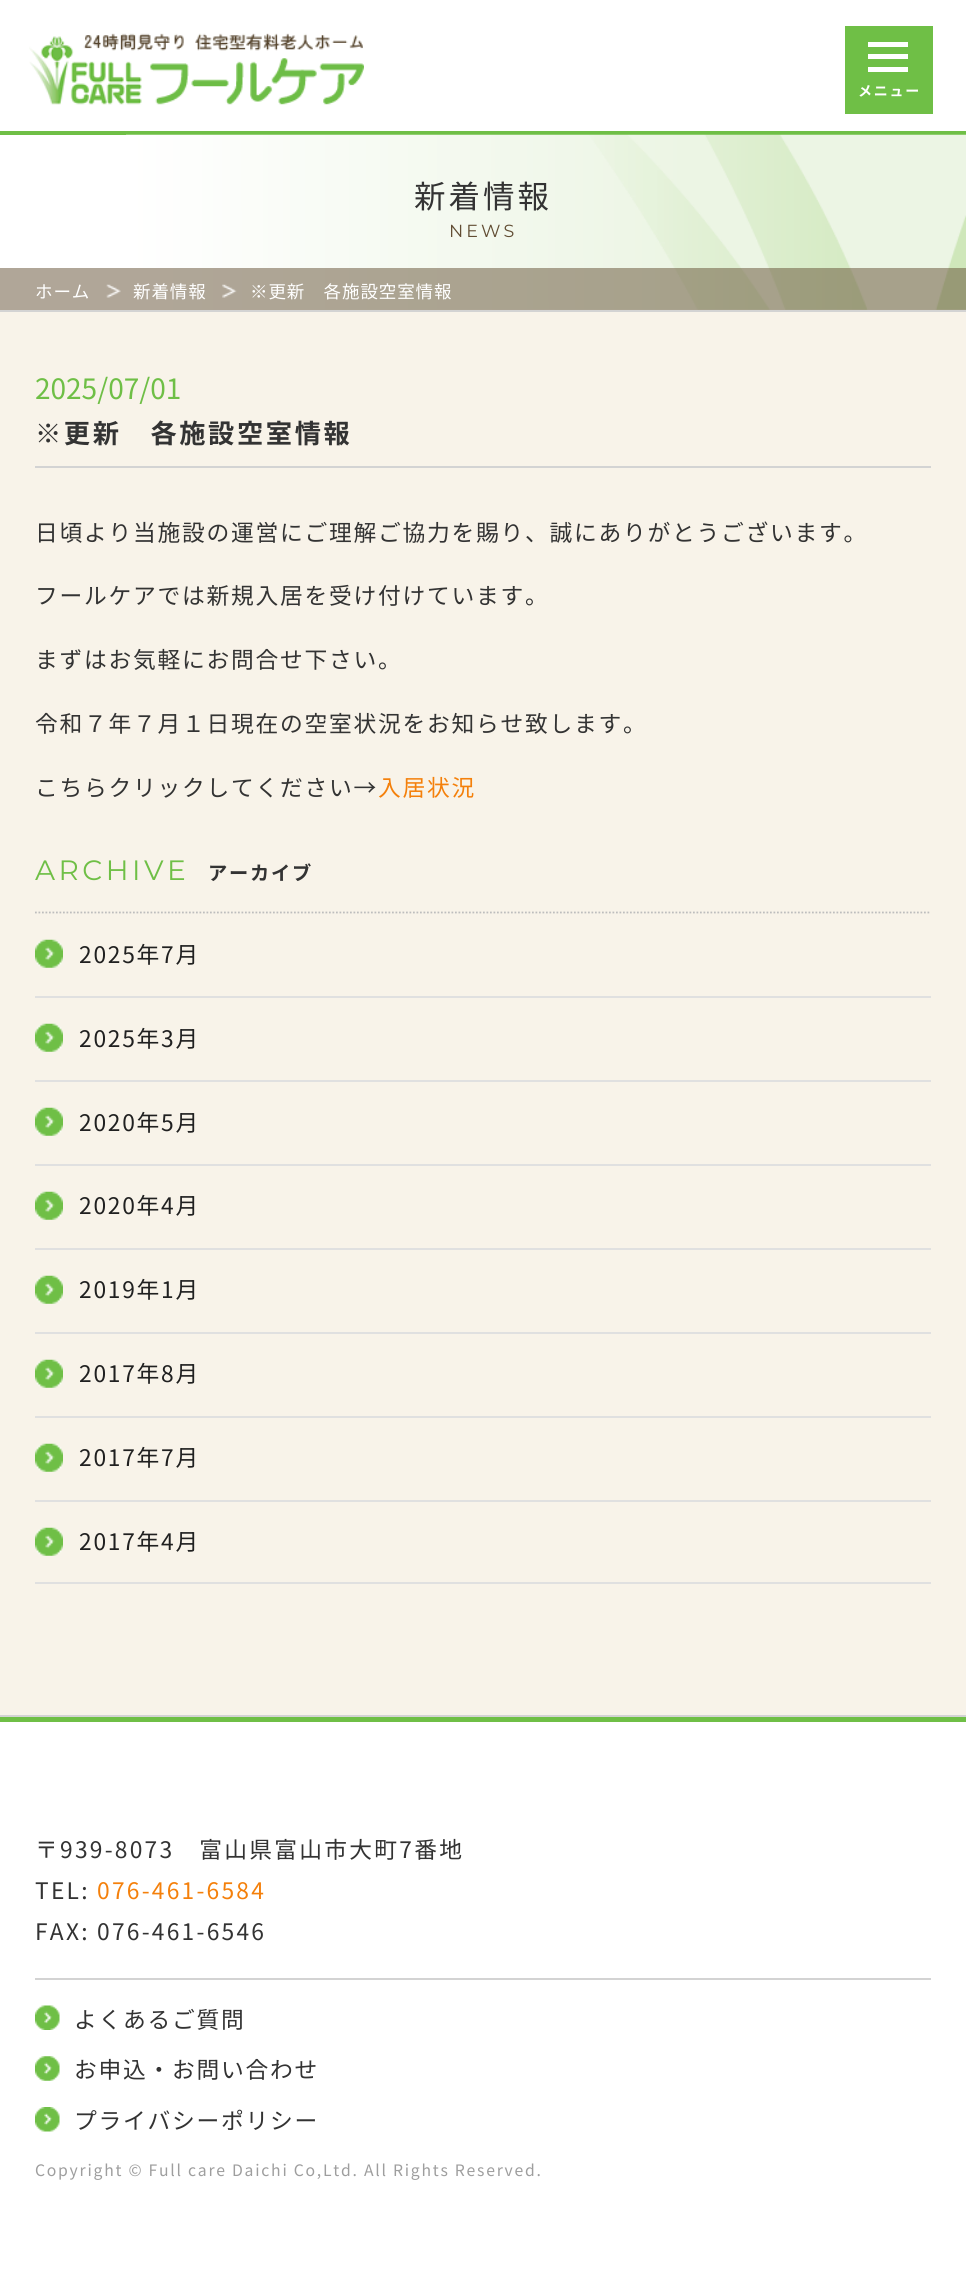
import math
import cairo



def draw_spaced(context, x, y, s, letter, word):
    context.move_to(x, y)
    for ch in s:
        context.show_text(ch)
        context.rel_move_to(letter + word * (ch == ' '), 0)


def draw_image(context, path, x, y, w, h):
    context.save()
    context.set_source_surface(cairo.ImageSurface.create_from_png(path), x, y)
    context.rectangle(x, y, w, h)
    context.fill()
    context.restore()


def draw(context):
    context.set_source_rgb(1, 1, 1)
    context.paint()
    context.set_source_rgb(111 / 255, 191 / 255, 70 / 255)
    context.rectangle(0, 131, 966, 4)
    context.fill()
    draw_image(context, "images/1.png", 29, 33, 335, 72)
    context.rectangle(845, 26, 88, 88)
    context.fill()
    context.set_source_rgb(1, 1, 1)
    context.rectangle(868, 54, 40, 5)
    context.fill()
    context.rectangle(868, 42, 40, 5)
    context.fill()
    context.rectangle(868, 67, 40, 5)
    context.fill()
    context.set_source_rgb(248 / 255, 243 / 255, 233 / 255)
    context.rectangle(0, 312, 966, 1403)
    context.fill()
    draw_image(context, "images/2.png", 126, 134, 840, 176)
    context.set_source_rgb(211 / 255, 211 / 255, 211 / 255)
    context.rectangle(0, 310, 966, 2)
    context.fill()
    context.set_source_rgba(98 / 255, 78 / 255, 51 / 255, 0.5)
    context.rectangle(0, 268, 966, 42)
    context.fill()
    draw_image(context, "images/3.png", 106, 284, 15, 14)
    draw_image(context, "images/4.png", 222, 284, 15, 14)
    context.set_source_rgb(211 / 255, 211 / 255, 211 / 255)
    context.rectangle(35, 466, 896, 2)
    context.fill()
    context.new_path()
    context.move_to(35, 912.5)
    context.line_to(931, 912.5)
    context.set_source_rgb(189 / 255, 189 / 255, 189 / 255)
    context.set_line_width(1.8)
    context.set_dash([1.75, 1.75])
    context.stroke()
    draw_image(context, "images/5.png", 35, 939, 28, 29)
    context.set_source_rgb(224 / 255, 224 / 255, 224 / 255)
    context.rectangle(35, 996, 896, 2)
    context.fill()
    draw_image(context, "images/5.png", 35, 1023, 28, 29)
    context.rectangle(35, 1080, 896, 2)
    context.fill()
    draw_image(context, "images/5.png", 35, 1107, 28, 29)
    context.rectangle(35, 1164, 896, 2)
    context.fill()
    draw_image(context, "images/5.png", 35, 1191, 28, 29)
    context.rectangle(35, 1248, 896, 2)
    context.fill()
    draw_image(context, "images/5.png", 35, 1275, 28, 29)
    context.rectangle(35, 1332, 896, 2)
    context.fill()
    draw_image(context, "images/5.png", 35, 1359, 28, 29)
    context.rectangle(35, 1416, 896, 2)
    context.fill()
    draw_image(context, "images/5.png", 35, 1443, 28, 29)
    context.rectangle(35, 1500, 896, 2)
    context.fill()
    draw_image(context, "images/5.png", 35, 1527, 28, 29)
    context.rectangle(35, 1582, 896, 2)
    context.fill()
    context.set_source_rgb(211 / 255, 211 / 255, 211 / 255)
    context.rectangle(0, 1715, 966, 2)
    context.fill()
    context.set_source_rgb(111 / 255, 191 / 255, 70 / 255)
    context.rectangle(0, 1717, 966, 5)
    context.fill()
    context.set_source_rgb(211 / 255, 211 / 255, 211 / 255)
    context.rectangle(35, 1978, 896, 2)
    context.fill()
    draw_image(context, "images/6.png", 35, 2005, 25, 25)
    draw_image(context, "images/7.png", 35, 2056, 25, 25)
    draw_image(context, "images/8.png", 35, 2107, 25, 25)
    context.select_font_face("Noto Sans JP", cairo.FontSlant.NORMAL, cairo.FontWeight.BOLD)
    context.set_font_size(14)
    context.set_source_rgb(1, 1, 1)
    draw_spaced(context, 858, 96, "メニュー", 1.75, 0)
    context.select_font_face("Noto Sans JP")
    context.set_font_size(31.5)
    context.set_source_rgb(51 / 255, 51 / 255, 51 / 255)
    draw_spaced(context, 414, 208, "新着情報", 3, 0)
    context.select_font_face("Montserrat Thin")
    context.set_font_size(17.5)
    context.set_source_rgb(97 / 255, 77 / 255, 51 / 255)
    draw_spaced(context, 449, 237, "NEWS", 3, 0)
    context.select_font_face("Noto Sans JP")
    context.set_source_rgb(1, 1, 1)
    draw_spaced(context, 35, 298, "ホーム", 0.9, 0)
    draw_spaced(context, 133, 298, "新着情報", 0.9, 0)
    draw_spaced(context, 250, 298, "※更新　各施設空室情報", 0.9, 0)
    context.set_font_size(28)
    context.set_source_rgb(111 / 255, 191 / 255, 70 / 255)
    context.move_to(35, 399)
    context.show_text("2025/07/01")
    context.select_font_face("Noto Sans JP", cairo.FontSlant.NORMAL, cairo.FontWeight.BOLD)
    context.set_font_size(26.25)
    context.set_source_rgb(51 / 255, 51 / 255, 51 / 255)
    draw_spaced(context, 35, 443, "※更新　各施設空室情報", 2.6, 0)
    context.select_font_face("Noto Sans JP")
    context.set_font_size(22.75)
    draw_spaced(context, 35, 541, "日頃より当施設の運営にご理解ご協力を賜り、誠にありがとうございます。", 1.75, 0)
    draw_spaced(context, 35, 604, "フールケアでは新規入居を受け付けています。", 1.75, 0)
    draw_spaced(context, 35, 668, "まずはお気軽にお問合せ下さい。", 1.75, 0)
    draw_spaced(context, 35, 732, "令和７年７月１日現在の空室状況をお知らせ致します。", 1.75, 0)
    draw_spaced(context, 35, 796, "こちらクリックしてください→", 1.75, 0)
    context.set_source_rgb(244 / 255, 128 / 255, 11 / 255)
    draw_spaced(context, 378, 796, "入居状況", 1.75, 0)
    context.select_font_face("Montserrat Thin")
    context.set_font_size(28)
    context.set_source_rgb(111 / 255, 191 / 255, 70 / 255)
    draw_spaced(context, 35, 880, "ARCHIVE", 3.5, 0)
    context.select_font_face("Noto Sans JP", cairo.FontSlant.NORMAL, cairo.FontWeight.BOLD)
    context.set_font_size(19.25)
    context.set_source_rgb(51 / 255, 51 / 255, 51 / 255)
    draw_spaced(context, 208, 880, "アーカイブ", 1.75, 0)
    context.select_font_face("Noto Sans JP")
    context.set_font_size(22.75)
    context.set_source_rgb(32 / 255, 32 / 255, 32 / 255)
    draw_spaced(context, 79, 963, "2025年7月", 1.75, 0)
    draw_spaced(context, 79, 1047, "2025年3月", 1.75, 0)
    draw_spaced(context, 79, 1131, "2020年5月", 1.75, 0)
    draw_spaced(context, 79, 1214, "2020年4月", 1.75, 0)
    draw_spaced(context, 79, 1298, "2019年1月", 1.75, 0)
    draw_spaced(context, 79, 1382, "2017年8月", 1.75, 0)
    draw_spaced(context, 79, 1466, "2017年7月", 1.75, 0)
    draw_spaced(context, 79, 1550, "2017年4月", 1.75, 0)
    context.set_source_rgb(51 / 255, 51 / 255, 51 / 255)
    draw_spaced(context, 35, 1858, "〒939-8073　富山県富山市大町7番地", 2.25, 0)
    draw_spaced(context, 35, 1899, "TEL:", 2.25, 0)
    context.set_source_rgb(244 / 255, 128 / 255, 11 / 255)
    draw_spaced(context, 97, 1899, "076-461-6584", 2.25, 0)
    context.set_source_rgb(51 / 255, 51 / 255, 51 / 255)
    draw_spaced(context, 35, 1940, "FAX: 076-461-6546", 2.25, 0)
    draw_spaced(context, 74, 2028, "よくあるご質問", 1.75, 0)
    draw_spaced(context, 74, 2078, "お申込・お問い合わせ", 1.75, 0)
    draw_spaced(context, 74, 2129, "プライバシーポリシー", 1.75, 0)
    context.set_font_size(15.75)
    context.set_source_rgb(158 / 255, 158 / 255, 158 / 255)
    draw_spaced(context, 35, 2176, "Copyright © Full care Daichi Co,Ltd. All Rights Reserved.", 1.75, 0)


surface = cairo.ImageSurface(cairo.Format.RGB24, 966, 2284)
context = cairo.Context(surface)
options = cairo.FontOptions()
options.set_hint_metrics(cairo.HintMetrics.OFF)
options.set_hint_style(cairo.HintStyle.NONE)
context.set_font_options(options)
context.set_miter_limit(4)
draw(context)
surface.write_to_png("out.png")
